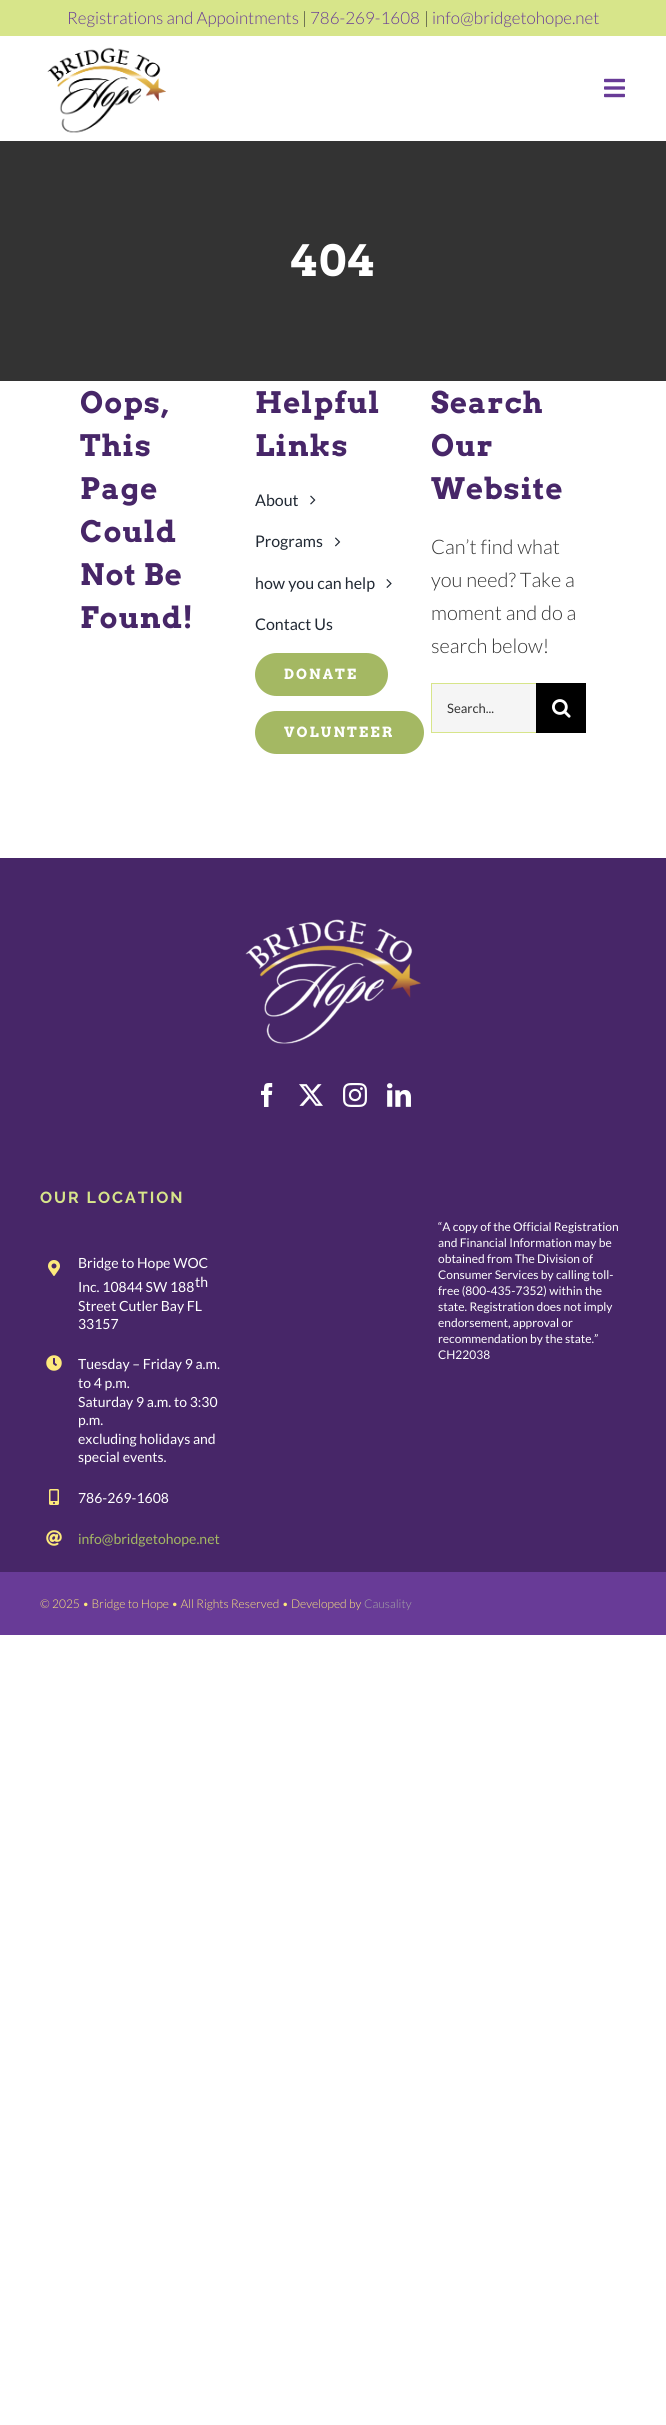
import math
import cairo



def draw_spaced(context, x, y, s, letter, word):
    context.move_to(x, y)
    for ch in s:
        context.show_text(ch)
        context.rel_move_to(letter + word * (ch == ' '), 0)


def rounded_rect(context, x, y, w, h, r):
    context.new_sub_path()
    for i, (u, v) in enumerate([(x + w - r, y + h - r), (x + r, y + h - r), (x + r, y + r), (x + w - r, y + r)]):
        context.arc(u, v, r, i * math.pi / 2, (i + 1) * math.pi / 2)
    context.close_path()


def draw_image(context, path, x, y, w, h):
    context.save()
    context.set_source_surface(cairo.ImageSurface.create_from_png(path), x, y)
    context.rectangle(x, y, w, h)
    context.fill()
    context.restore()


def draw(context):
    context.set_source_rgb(1, 1, 1)
    context.paint()
    context.set_source_rgb(215 / 255, 229 / 255, 138 / 255)
    context.rectangle(0, 0, 666, 36)
    context.fill()
    draw_image(context, "images/1.png", 47, 47, 119, 86)
    draw_image(context, "images/2.png", 604, 78, 21, 20)
    context.set_source_rgb(51 / 255, 51 / 255, 51 / 255)
    context.rectangle(0, 141, 666, 240)
    context.fill()
    draw_image(context, "images/3.png", 310, 495, 6, 10)
    draw_image(context, "images/4.png", 335, 537, 6, 10)
    draw_image(context, "images/5.png", 386, 579, 6, 9)
    context.set_source_rgb(164 / 255, 184 / 255, 99 / 255)
    rounded_rect(context, 255, 653, 133, 43, 21.5)
    context.fill()
    rounded_rect(context, 255, 711, 169, 43, 21.5)
    context.fill()
    context.set_source_rgb(245 / 255, 245 / 255, 245 / 255)
    context.rectangle(432, 684, 104, 48)
    context.fill()
    context.set_source_rgb(215 / 255, 229 / 255, 138 / 255)
    context.rectangle(431, 683, 105, 1)
    context.fill()
    context.rectangle(431, 732, 105, 1)
    context.fill()
    context.rectangle(431, 683, 1, 50)
    context.fill()
    context.set_source_rgb(0, 0, 0)
    context.rectangle(536, 683, 50, 50)
    context.fill()
    draw_image(context, "images/6.png", 552, 699, 19, 19)
    context.set_source_rgb(71 / 255, 38 / 255, 104 / 255)
    context.rectangle(0, 858, 666, 714)
    context.fill()
    draw_image(context, "images/7.png", 245, 919, 176, 125)
    draw_image(context, "images/8.png", 261, 1083, 12, 24)
    draw_image(context, "images/9.png", 299, 1084, 24, 22)
    draw_image(context, "images/10.png", 343, 1083, 24, 24)
    draw_image(context, "images/11.png", 387, 1083, 24, 24)
    draw_image(context, "images/12.png", 48, 1260, 12, 16)
    draw_image(context, "images/13.png", 46, 1355, 16, 16)
    draw_image(context, "images/14.png", 49, 1489, 10, 16)
    draw_image(context, "images/15.png", 46, 1530, 16, 16)
    context.set_source_rgb(104 / 255, 59 / 255, 151 / 255)
    context.rectangle(0, 1572, 666, 63)
    context.fill()
    context.select_font_face("Lato Light")
    context.set_font_size(17)
    context.move_to(67, 24)
    context.show_text("Registrations and Appointments")
    context.set_source_rgb(51 / 255, 51 / 255, 51 / 255)
    context.move_to(302, 24)
    context.show_text("|")
    context.set_source_rgb(104 / 255, 59 / 255, 151 / 255)
    context.move_to(310, 24)
    context.show_text("786-269-1608")
    context.set_source_rgb(51 / 255, 51 / 255, 51 / 255)
    context.move_to(424, 24)
    context.show_text("|")
    context.set_source_rgb(104 / 255, 59 / 255, 151 / 255)
    context.move_to(432, 24)
    context.show_text("info@bridgetohope.net")
    context.select_font_face("Arvo", cairo.FontSlant.NORMAL, cairo.FontWeight.BOLD)
    context.set_font_size(43)
    context.set_source_rgb(1, 1, 1)
    draw_spaced(context, 291, 276, "404", 2, 0)
    context.set_font_size(29.5)
    context.set_source_rgb(71 / 255, 38 / 255, 104 / 255)
    draw_spaced(context, 80, 413, "Oops,", 1, 0)
    draw_spaced(context, 80, 456, "This", 1, 0)
    draw_spaced(context, 80, 499, "Page", 1, 0)
    draw_spaced(context, 80, 542, "Could", 1, 0)
    draw_spaced(context, 80, 585, "Not Be", 1, 0)
    draw_spaced(context, 80, 628, "Found!", 1, 0)
    draw_spaced(context, 255, 413, "Helpful", 1, 0)
    draw_spaced(context, 255, 456, "Links", 1, 0)
    context.select_font_face("Lato")
    context.set_font_size(16)
    context.set_source_rgb(33 / 255, 41 / 255, 52 / 255)
    context.move_to(255, 506)
    context.show_text("About")
    context.move_to(255, 547)
    context.show_text("Programs")
    context.move_to(255, 589)
    context.show_text("how you can help")
    context.move_to(255, 630)
    context.show_text("Contact Us")
    context.select_font_face("Arvo", cairo.FontSlant.NORMAL, cairo.FontWeight.BOLD)
    context.set_font_size(14)
    context.set_source_rgb(1, 1, 1)
    draw_spaced(context, 284, 679, "DONATE", 2, 0)
    draw_spaced(context, 284, 737, "VOLUNTEER", 2, 0)
    context.set_font_size(29.5)
    context.set_source_rgb(71 / 255, 38 / 255, 104 / 255)
    draw_spaced(context, 431, 413, "Search", 1, 0)
    draw_spaced(context, 431, 456, "Our", 1, 0)
    draw_spaced(context, 431, 499, "Website", 1, 0)
    context.select_font_face("Lato Light")
    context.set_font_size(20)
    context.set_source_rgb(51 / 255, 51 / 255, 51 / 255)
    context.move_to(431, 554)
    context.show_text("Can’t find what")
    context.move_to(431, 587)
    context.show_text("you need? Take a")
    context.move_to(431, 620)
    context.show_text("moment and do a")
    context.move_to(431, 653)
    context.show_text("search below!")
    context.select_font_face("Lato")
    context.set_font_size(13)
    context.move_to(447, 713)
    context.show_text("Search...")
    context.select_font_face("Raleway", cairo.FontSlant.NORMAL, cairo.FontWeight.BOLD)
    context.set_font_size(16)
    context.set_source_rgb(215 / 255, 229 / 255, 138 / 255)
    draw_spaced(context, 40, 1203, "OUR LOCATION", 2, 0)
    context.select_font_face("Lato")
    context.set_font_size(14)
    context.set_source_rgb(1, 1, 1)
    context.move_to(78, 1268)
    context.show_text("Bridge to Hope WOC")
    context.move_to(78, 1292)
    context.show_text("Inc. 10844 SW 188")
    context.move_to(195, 1287)
    context.show_text("th")
    context.move_to(78, 1311)
    context.show_text("Street Cutler Bay FL")
    context.move_to(78, 1329)
    context.show_text("33157")
    context.move_to(78, 1369)
    context.show_text("Tuesday – Friday 9 a.m.")
    context.move_to(78, 1388)
    context.show_text("to 4 p.m.")
    context.move_to(78, 1407)
    context.show_text("Saturday 9 a.m. to 3:30")
    context.move_to(78, 1425)
    context.show_text("p.m.")
    context.move_to(78, 1444)
    context.show_text("excluding holidays and")
    context.move_to(78, 1462)
    context.show_text("special events.")
    context.move_to(78, 1503)
    context.show_text("786-269-1608")
    context.set_source_rgb(164 / 255, 184 / 255, 99 / 255)
    context.move_to(78, 1544)
    context.show_text("info@bridgetohope.net")
    context.set_font_size(12)
    context.set_source_rgb(1, 1, 1)
    context.move_to(438, 1231)
    context.show_text("“A copy of the Official Registration")
    context.move_to(438, 1247)
    context.show_text("and Financial Information may be")
    context.move_to(438, 1263)
    context.show_text("obtained from The Division of")
    context.move_to(438, 1279)
    context.show_text("Consumer Services by calling toll-")
    context.move_to(438, 1295)
    context.show_text("free (800-435-7352) within the")
    context.move_to(438, 1311)
    context.show_text("state. Registration does not imply")
    context.move_to(438, 1327)
    context.show_text("endorsement, approval or")
    context.move_to(438, 1343)
    context.show_text("recommendation by the state.”")
    context.move_to(438, 1359)
    context.show_text("CH22038")
    context.select_font_face("Lato Light")
    context.set_source_rgb(253 / 255, 233 / 255, 124 / 255)
    context.move_to(40, 1608)
    context.show_text("© 2025 • Bridge to Hope • All Rights Reserved • Developed by")
    context.set_source_rgb(166 / 255, 166 / 255, 166 / 255)
    context.move_to(364, 1608)
    context.show_text("Causality")


surface = cairo.ImageSurface(cairo.Format.RGB24, 666, 2425)
context = cairo.Context(surface)
options = cairo.FontOptions()
options.set_hint_metrics(cairo.HintMetrics.OFF)
options.set_hint_style(cairo.HintStyle.NONE)
context.set_font_options(options)
context.set_miter_limit(4)
draw(context)
surface.write_to_png("out.png")
